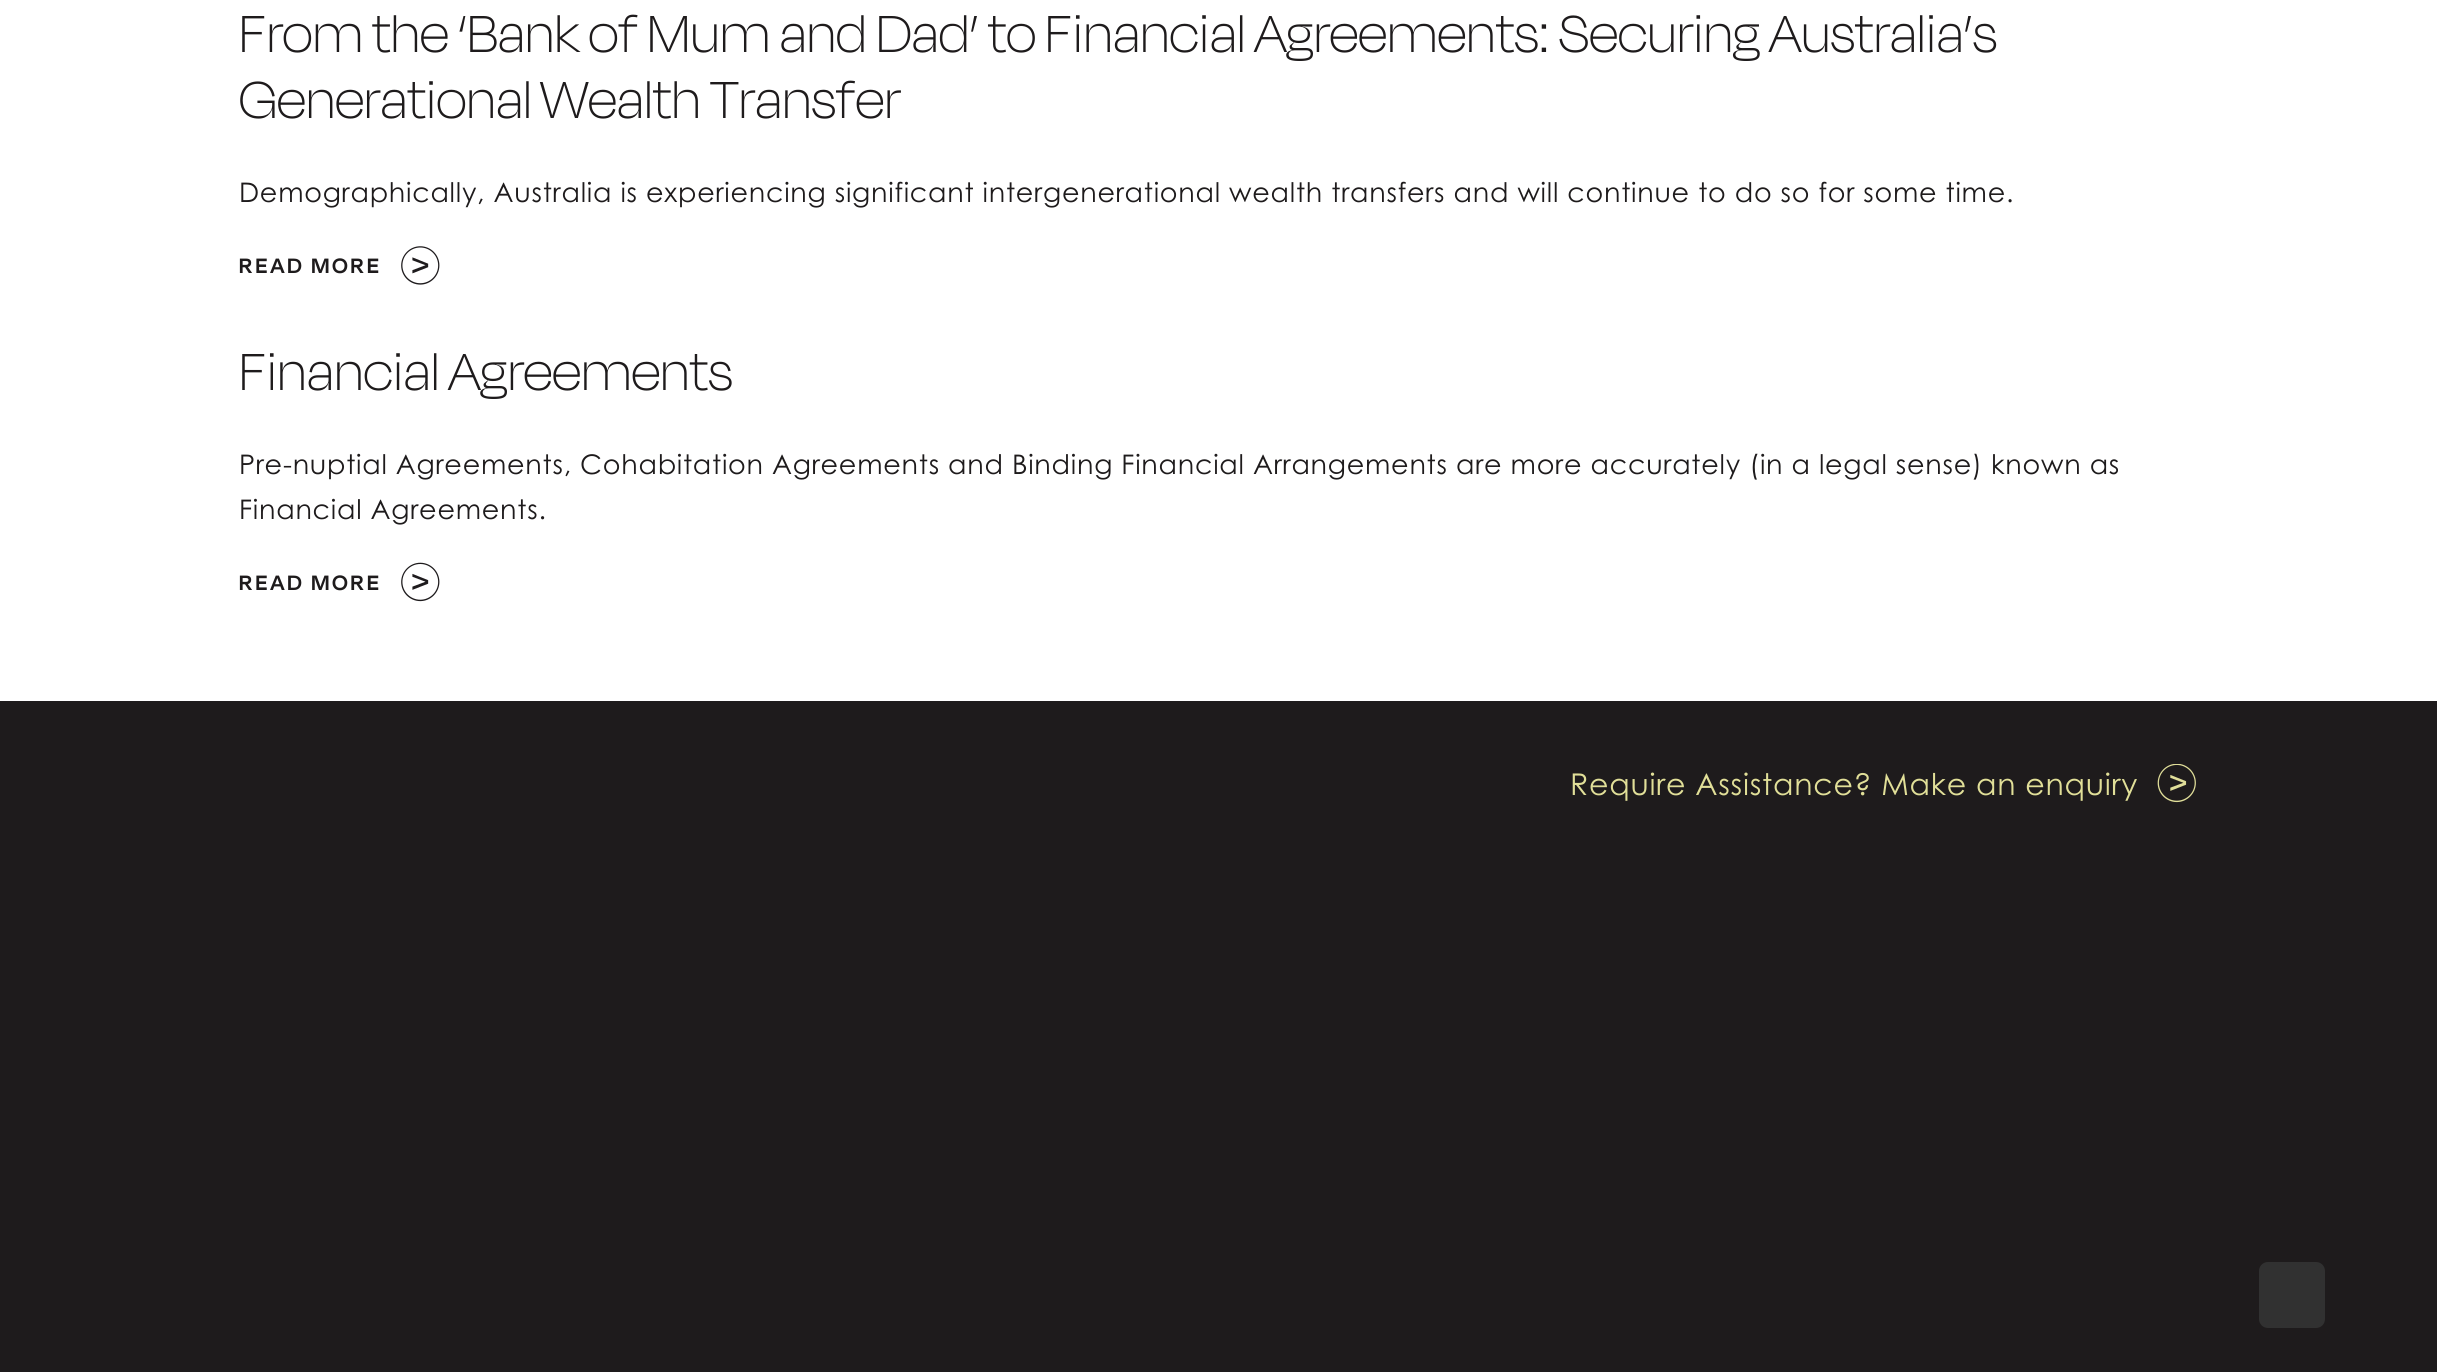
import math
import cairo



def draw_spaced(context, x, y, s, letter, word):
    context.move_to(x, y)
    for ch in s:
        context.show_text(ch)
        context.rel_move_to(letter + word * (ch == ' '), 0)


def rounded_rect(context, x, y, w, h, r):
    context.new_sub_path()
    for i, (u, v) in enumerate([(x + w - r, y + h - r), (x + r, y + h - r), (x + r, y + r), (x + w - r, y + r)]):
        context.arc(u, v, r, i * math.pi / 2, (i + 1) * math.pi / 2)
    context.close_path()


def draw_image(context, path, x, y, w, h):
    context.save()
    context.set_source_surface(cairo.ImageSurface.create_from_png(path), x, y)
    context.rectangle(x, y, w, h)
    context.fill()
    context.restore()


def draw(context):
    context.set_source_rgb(1, 1, 1)
    context.paint()
    draw_image(context, "images/1.png", 401, 246, 39, 39)
    draw_image(context, "images/2.png", 401, 562, 39, 40)
    context.set_source_rgb(30 / 255, 27 / 255, 28 / 255)
    context.rectangle(0, 701, 2437, 671)
    context.fill()
    draw_image(context, "images/3.png", 2157, 764, 39, 39)
    context.set_source_rgb(49 / 255, 49 / 255, 49 / 255)
    rounded_rect(context, 2259, 1262, 66, 66, 9)
    context.fill()
    context.select_font_face("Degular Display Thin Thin")
    context.set_font_size(60)
    context.set_source_rgb(30 / 255, 27 / 255, 28 / 255)
    context.move_to(239, 52)
    context.show_text("From the ‘Bank of Mum and Dad’ to Financial Agreements: Securing Australia’s")
    context.move_to(239, 118)
    context.show_text("Generational Wealth Transfer")
    context.select_font_face("Century Gothic")
    context.set_font_size(27)
    draw_spaced(context, 239, 202, "Demographically, Australia is experiencing significant intergenerational wealth transfers and will continue to do so for some time.", 0.75, 0)
    context.select_font_face("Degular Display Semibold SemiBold")
    context.set_font_size(24)
    draw_spaced(context, 239, 273, "READ MORE", 3, 0)
    context.select_font_face("Degular Display Thin Thin")
    context.set_font_size(60)
    context.move_to(239, 390)
    context.show_text("Financial Agreements")
    context.select_font_face("Century Gothic")
    context.set_font_size(27)
    draw_spaced(context, 239, 474, "Pre-nuptial Agreements, Cohabitation Agreements and Binding Financial Arrangements are more accurately (in a legal sense) known as", 0.75, 0)
    draw_spaced(context, 239, 519, "Financial Agreements.", 0.75, 0)
    context.select_font_face("Degular Display Semibold SemiBold")
    context.set_font_size(24)
    draw_spaced(context, 239, 590, "READ MORE", 3, 0)
    context.select_font_face("Century Gothic")
    context.set_font_size(30)
    context.set_source_rgb(225 / 255, 223 / 255, 152 / 255)
    draw_spaced(context, 1570, 795, "Require Assistance? Make an enquiry", 0.75, 0)


surface = cairo.ImageSurface(cairo.Format.RGB24, 2437, 1372)
context = cairo.Context(surface)
options = cairo.FontOptions()
options.set_hint_metrics(cairo.HintMetrics.OFF)
options.set_hint_style(cairo.HintStyle.NONE)
context.set_font_options(options)
context.set_miter_limit(4)
draw(context)
surface.write_to_png("out.png")
